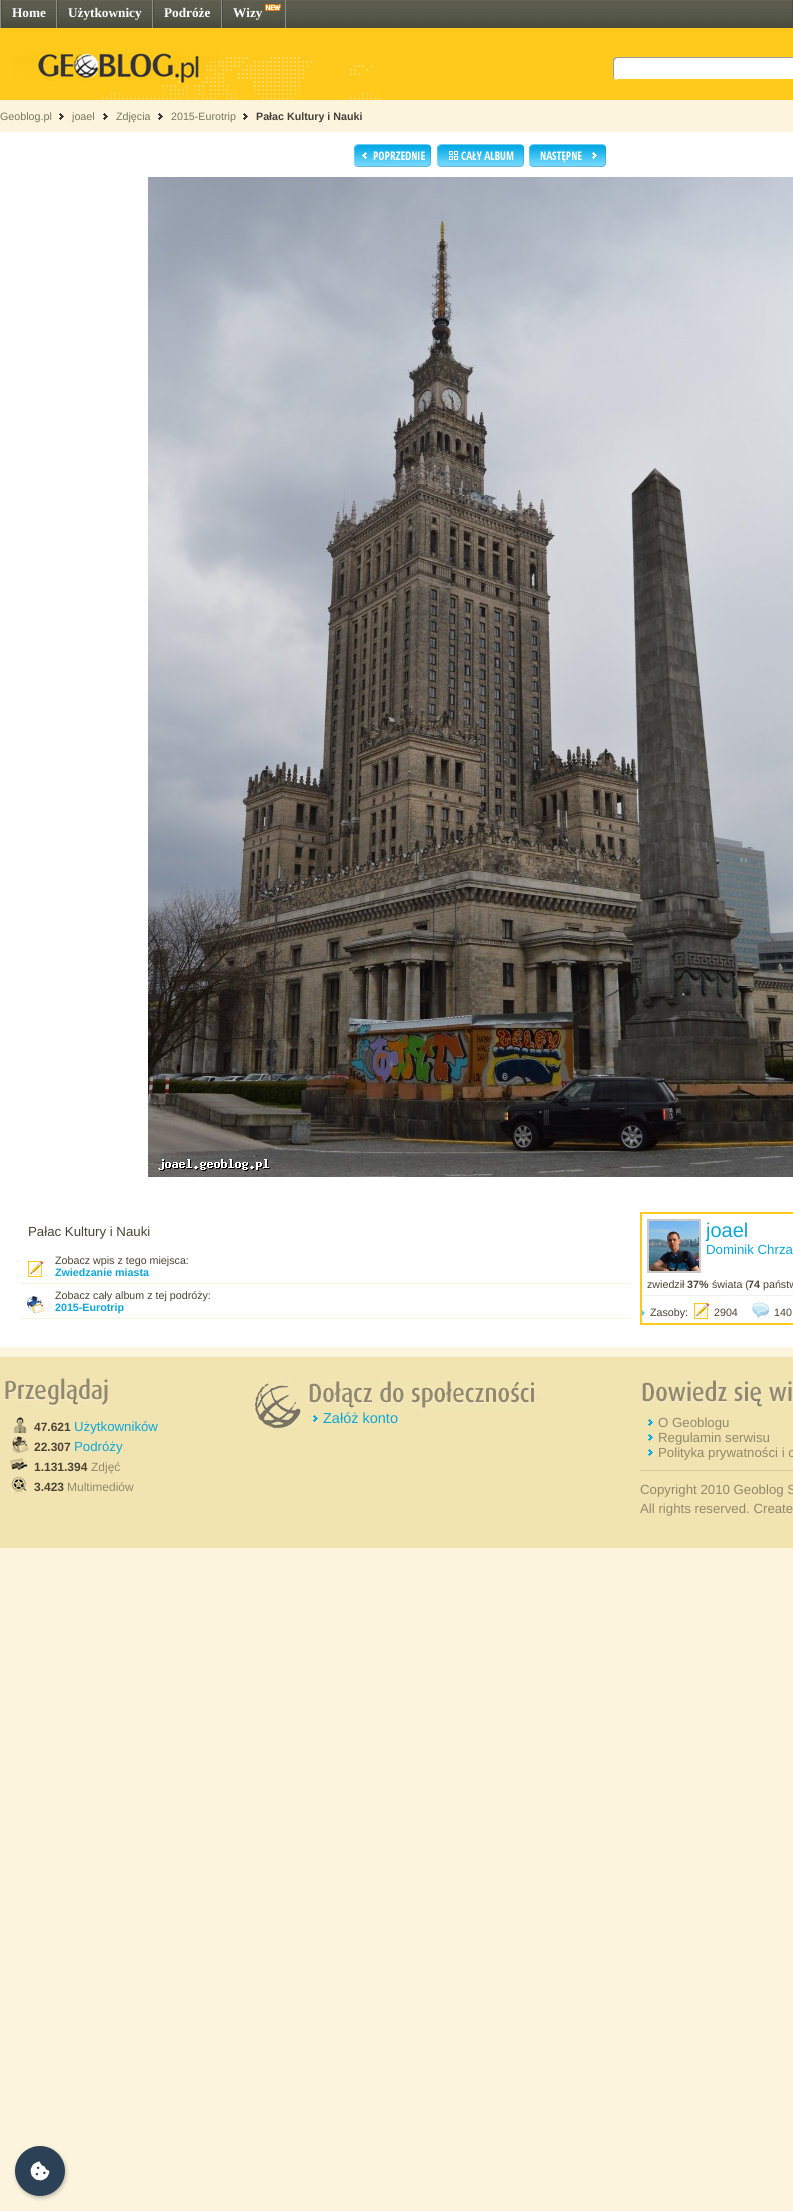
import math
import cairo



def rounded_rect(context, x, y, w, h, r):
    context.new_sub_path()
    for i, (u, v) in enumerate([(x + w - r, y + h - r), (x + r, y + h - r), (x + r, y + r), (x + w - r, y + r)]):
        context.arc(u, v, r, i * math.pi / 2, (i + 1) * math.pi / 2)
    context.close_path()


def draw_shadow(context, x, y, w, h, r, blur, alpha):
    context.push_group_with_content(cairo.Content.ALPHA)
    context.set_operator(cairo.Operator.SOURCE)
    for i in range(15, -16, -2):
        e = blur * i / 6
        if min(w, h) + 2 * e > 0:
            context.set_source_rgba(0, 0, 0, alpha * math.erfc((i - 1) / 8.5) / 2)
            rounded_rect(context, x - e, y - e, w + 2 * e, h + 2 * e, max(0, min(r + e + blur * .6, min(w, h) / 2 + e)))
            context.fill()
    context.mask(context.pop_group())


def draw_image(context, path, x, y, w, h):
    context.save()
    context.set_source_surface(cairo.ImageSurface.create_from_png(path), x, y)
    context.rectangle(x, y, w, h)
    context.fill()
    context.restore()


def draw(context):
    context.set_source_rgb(252 / 255, 244 / 255, 221 / 255)
    context.paint()
    draw_image(context, "images/1.png", 2, 0, 790, 28)
    context.set_source_rgb(140 / 255, 141 / 255, 131 / 255)
    context.rectangle(0, 0, 1, 28)
    context.fill()
    context.rectangle(56, 0, 1, 28)
    context.fill()
    context.set_source_rgb(73 / 255, 74 / 255, 65 / 255)
    context.rectangle(1, 0, 1, 28)
    context.fill()
    context.set_source_rgb(140 / 255, 141 / 255, 131 / 255)
    context.rectangle(152, 0, 1, 28)
    context.fill()
    context.set_source_rgb(73 / 255, 74 / 255, 65 / 255)
    context.rectangle(57, 0, 1, 28)
    context.fill()
    context.set_source_rgb(140 / 255, 141 / 255, 131 / 255)
    context.rectangle(221, 0, 1, 28)
    context.fill()
    context.set_source_rgb(73 / 255, 74 / 255, 65 / 255)
    context.rectangle(153, 0, 1, 28)
    context.fill()
    context.set_source_rgb(140 / 255, 141 / 255, 131 / 255)
    context.rectangle(285, 0, 1, 28)
    context.fill()
    context.set_source_rgb(73 / 255, 74 / 255, 65 / 255)
    context.rectangle(222, 0, 1, 28)
    context.fill()
    draw_image(context, "images/2.png", 265, 4, 16, 7)
    context.rectangle(792, 0, 1, 28)
    context.fill()
    context.set_source_rgb(1, 202 / 255, 28 / 255)
    context.rectangle(0, 28, 793, 72)
    context.fill()
    draw_image(context, "images/3.png", 0, 52, 380, 48)
    draw_image(context, "images/4.png", 613, 56, 4, 25)
    context.set_source_rgb(1, 1, 1)
    context.rectangle(617, 78, 176, 1)
    context.fill()
    draw_image(context, "images/5.png", 617, 56, 176, 22)
    draw_image(context, "images/6.png", 59, 113, 5, 7)
    draw_image(context, "images/6.png", 103, 113, 5, 7)
    draw_image(context, "images/6.png", 158, 113, 5, 7)
    draw_image(context, "images/6.png", 243, 113, 5, 7)
    context.rectangle(0, 132, 793, 1215)
    context.fill()
    draw_image(context, "images/7.png", 354, 144, 77, 23)
    draw_image(context, "images/8.png", 437, 144, 87, 23)
    draw_image(context, "images/9.png", 529, 144, 77, 23)
    draw_image(context, "images/10.png", 148, 177, 645, 1000)
    context.set_source_rgb(250 / 255, 245 / 255, 223 / 255)
    context.rectangle(20, 1283, 610, 1)
    context.fill()
    draw_image(context, "images/11.png", 28, 1261, 16, 16)
    context.rectangle(20, 1318, 610, 1)
    context.fill()
    draw_image(context, "images/12.png", 27, 1296, 18, 18)
    context.rectangle(641, 1213, 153, 111)
    context.set_source_rgb(1, 202 / 255, 28 / 255)
    context.stroke()
    context.set_source_rgb(240 / 255, 240 / 255, 240 / 255)
    context.rectangle(642, 1295, 151, 1)
    context.fill()
    context.rectangle(648, 1220, 52, 52)
    context.set_source_rgb(202 / 255, 202 / 255, 202 / 255)
    context.stroke()
    draw_image(context, "images/13.png", 649, 1221, 50, 50)
    draw_image(context, "images/14.png", 642, 1310, 3, 6)
    draw_image(context, "images/11.png", 694, 1303, 16, 16)
    draw_image(context, "images/15.png", 752, 1302, 17, 16)
    context.set_source_rgb(242 / 255, 228 / 255, 177 / 255)
    context.rectangle(0, 1357, 793, 191)
    context.fill()
    draw_image(context, "images/16.png", 252, 1379, 52, 52)
    draw_image(context, "images/17.png", 305, 1379, 234, 31)
    draw_image(context, "images/18.png", 310, 1413, 9, 12)
    draw_image(context, "images/19.png", 4, 1377, 104, 32)
    draw_image(context, "images/20.png", 11, 1417, 16, 16)
    draw_image(context, "images/21.png", 11, 1436, 18, 17)
    draw_image(context, "images/22.png", 10, 1457, 19, 16)
    draw_image(context, "images/23.png", 11, 1476, 16, 17)
    draw_image(context, "images/24.png", 642, 1379, 151, 28)
    context.set_source_rgb(215 / 255, 201 / 255, 154 / 255)
    context.rectangle(640, 1470, 153, 1)
    context.fill()
    draw_image(context, "images/18.png", 645, 1417, 9, 12)
    draw_image(context, "images/18.png", 645, 1432, 9, 12)
    draw_image(context, "images/18.png", 645, 1447, 9, 12)
    context.set_source_rgb(0, 0, 0)
    draw_shadow(context, 16, 2148, 50, 50, 25, 2, 0.25)
    context.set_source_rgb(45 / 255, 65 / 255, 86 / 255)
    context.arc(40, 2171, 25, 0, 2 * math.pi)
    context.fill()
    draw_image(context, "images/25.png", 30, 2161, 20, 20)
    context.select_font_face("Liberation Serif", cairo.FontSlant.NORMAL, cairo.FontWeight.BOLD)
    context.set_font_size(13.25)
    context.set_source_rgb(1, 1, 1)
    context.move_to(12, 17)
    context.show_text("Home")
    context.move_to(68, 17)
    context.show_text("Użytkownicy")
    context.move_to(164, 17)
    context.show_text("Podróże")
    context.move_to(233, 17)
    context.show_text("Wizy")
    context.select_font_face("Liberation Sans")
    context.set_font_size(10.7)
    context.set_source_rgb(118 / 255, 118 / 255, 92 / 255)
    context.move_to(0, 120)
    context.show_text("Geoblog.pl")
    context.move_to(72, 120)
    context.show_text("joael")
    context.move_to(116, 120)
    context.show_text("Zdjęcia")
    context.move_to(171, 120)
    context.show_text("2015-Eurotrip")
    context.select_font_face("Liberation Sans", cairo.FontSlant.NORMAL, cairo.FontWeight.BOLD)
    context.set_source_rgb(68 / 255, 63 / 255, 57 / 255)
    context.move_to(256, 120)
    context.show_text("Pałac Kultury i Nauki")
    context.select_font_face("Liberation Sans")
    context.set_font_size(13.25)
    context.set_source_rgb(75 / 255, 66 / 255, 51 / 255)
    context.move_to(28, 1236)
    context.show_text("Pałac Kultury i Nauki")
    context.set_font_size(10.7)
    context.move_to(55, 1264)
    context.show_text("Zobacz wpis z tego miejsca:")
    context.select_font_face("Liberation Sans", cairo.FontSlant.NORMAL, cairo.FontWeight.BOLD)
    context.set_source_rgb(11 / 255, 167 / 255, 216 / 255)
    context.move_to(55, 1276)
    context.show_text("Zwiedzanie miasta")
    context.select_font_face("Liberation Sans")
    context.set_source_rgb(75 / 255, 66 / 255, 51 / 255)
    context.move_to(55, 1299)
    context.show_text("Zobacz cały album z tej podróży:")
    context.select_font_face("Liberation Sans", cairo.FontSlant.NORMAL, cairo.FontWeight.BOLD)
    context.set_source_rgb(11 / 255, 167 / 255, 216 / 255)
    context.move_to(55, 1311)
    context.show_text("2015-Eurotrip")
    context.select_font_face("Liberation Sans")
    context.set_font_size(20)
    context.move_to(706, 1237)
    context.show_text("joael")
    context.set_font_size(13.25)
    context.move_to(706, 1254)
    context.show_text("Dominik Chrza")
    context.set_font_size(10.7)
    context.set_source_rgb(75 / 255, 66 / 255, 51 / 255)
    context.move_to(647, 1288)
    context.show_text("zwiedził")
    context.select_font_face("Liberation Sans", cairo.FontSlant.NORMAL, cairo.FontWeight.BOLD)
    context.move_to(687, 1288)
    context.show_text("37%")
    context.select_font_face("Liberation Sans")
    context.move_to(712, 1288)
    context.show_text("świata (")
    context.select_font_face("Liberation Sans", cairo.FontSlant.NORMAL, cairo.FontWeight.BOLD)
    context.move_to(748, 1288)
    context.show_text("74")
    context.select_font_face("Liberation Sans")
    context.move_to(763, 1288)
    context.show_text("państw")
    context.move_to(650, 1316)
    context.show_text("Zasoby:")
    context.move_to(714, 1316)
    context.show_text("2904")
    context.move_to(774, 1316)
    context.show_text("140")
    context.set_font_size(14.5)
    context.set_source_rgb(11 / 255, 167 / 255, 216 / 255)
    context.move_to(323, 1423)
    context.show_text("Załóż konto")
    context.select_font_face("Liberation Sans", cairo.FontSlant.NORMAL, cairo.FontWeight.BOLD)
    context.set_font_size(12)
    context.set_source_rgb(75 / 255, 66 / 255, 51 / 255)
    context.move_to(34, 1431)
    context.show_text("47.621")
    context.select_font_face("Liberation Sans")
    context.set_font_size(13.25)
    context.set_source_rgb(11 / 255, 167 / 255, 216 / 255)
    context.move_to(74, 1431)
    context.show_text("Użytkowników")
    context.select_font_face("Liberation Sans", cairo.FontSlant.NORMAL, cairo.FontWeight.BOLD)
    context.set_font_size(12)
    context.set_source_rgb(75 / 255, 66 / 255, 51 / 255)
    context.move_to(34, 1451)
    context.show_text("22.307")
    context.select_font_face("Liberation Sans")
    context.set_font_size(13.25)
    context.set_source_rgb(11 / 255, 167 / 255, 216 / 255)
    context.move_to(74, 1451)
    context.show_text("Podróży")
    context.select_font_face("Liberation Sans", cairo.FontSlant.NORMAL, cairo.FontWeight.BOLD)
    context.set_font_size(12)
    context.set_source_rgb(75 / 255, 66 / 255, 51 / 255)
    context.move_to(34, 1471)
    context.show_text("1.131.394")
    context.select_font_face("Liberation Sans")
    context.set_source_rgb(146 / 255, 136 / 255, 106 / 255)
    context.move_to(91, 1471)
    context.show_text("Zdjęć")
    context.select_font_face("Liberation Sans", cairo.FontSlant.NORMAL, cairo.FontWeight.BOLD)
    context.set_source_rgb(75 / 255, 66 / 255, 51 / 255)
    context.move_to(34, 1491)
    context.show_text("3.423")
    context.select_font_face("Liberation Sans")
    context.set_source_rgb(146 / 255, 136 / 255, 106 / 255)
    context.move_to(67, 1491)
    context.show_text("Multimediów")
    context.set_font_size(13.25)
    context.move_to(658, 1427)
    context.show_text("O Geoblogu")
    context.move_to(658, 1442)
    context.show_text("Regulamin serwisu")
    context.move_to(658, 1457)
    context.show_text("Polityka prywatności i c")
    context.move_to(640, 1494)
    context.show_text("Copyright 2010 Geoblog S")
    context.move_to(640, 1513)
    context.show_text("All rights reserved. Create")


surface = cairo.ImageSurface(cairo.Format.RGB24, 793, 2211)
context = cairo.Context(surface)
options = cairo.FontOptions()
options.set_hint_metrics(cairo.HintMetrics.OFF)
options.set_hint_style(cairo.HintStyle.NONE)
context.set_font_options(options)
context.set_miter_limit(4)
draw(context)
surface.write_to_png("out.png")
